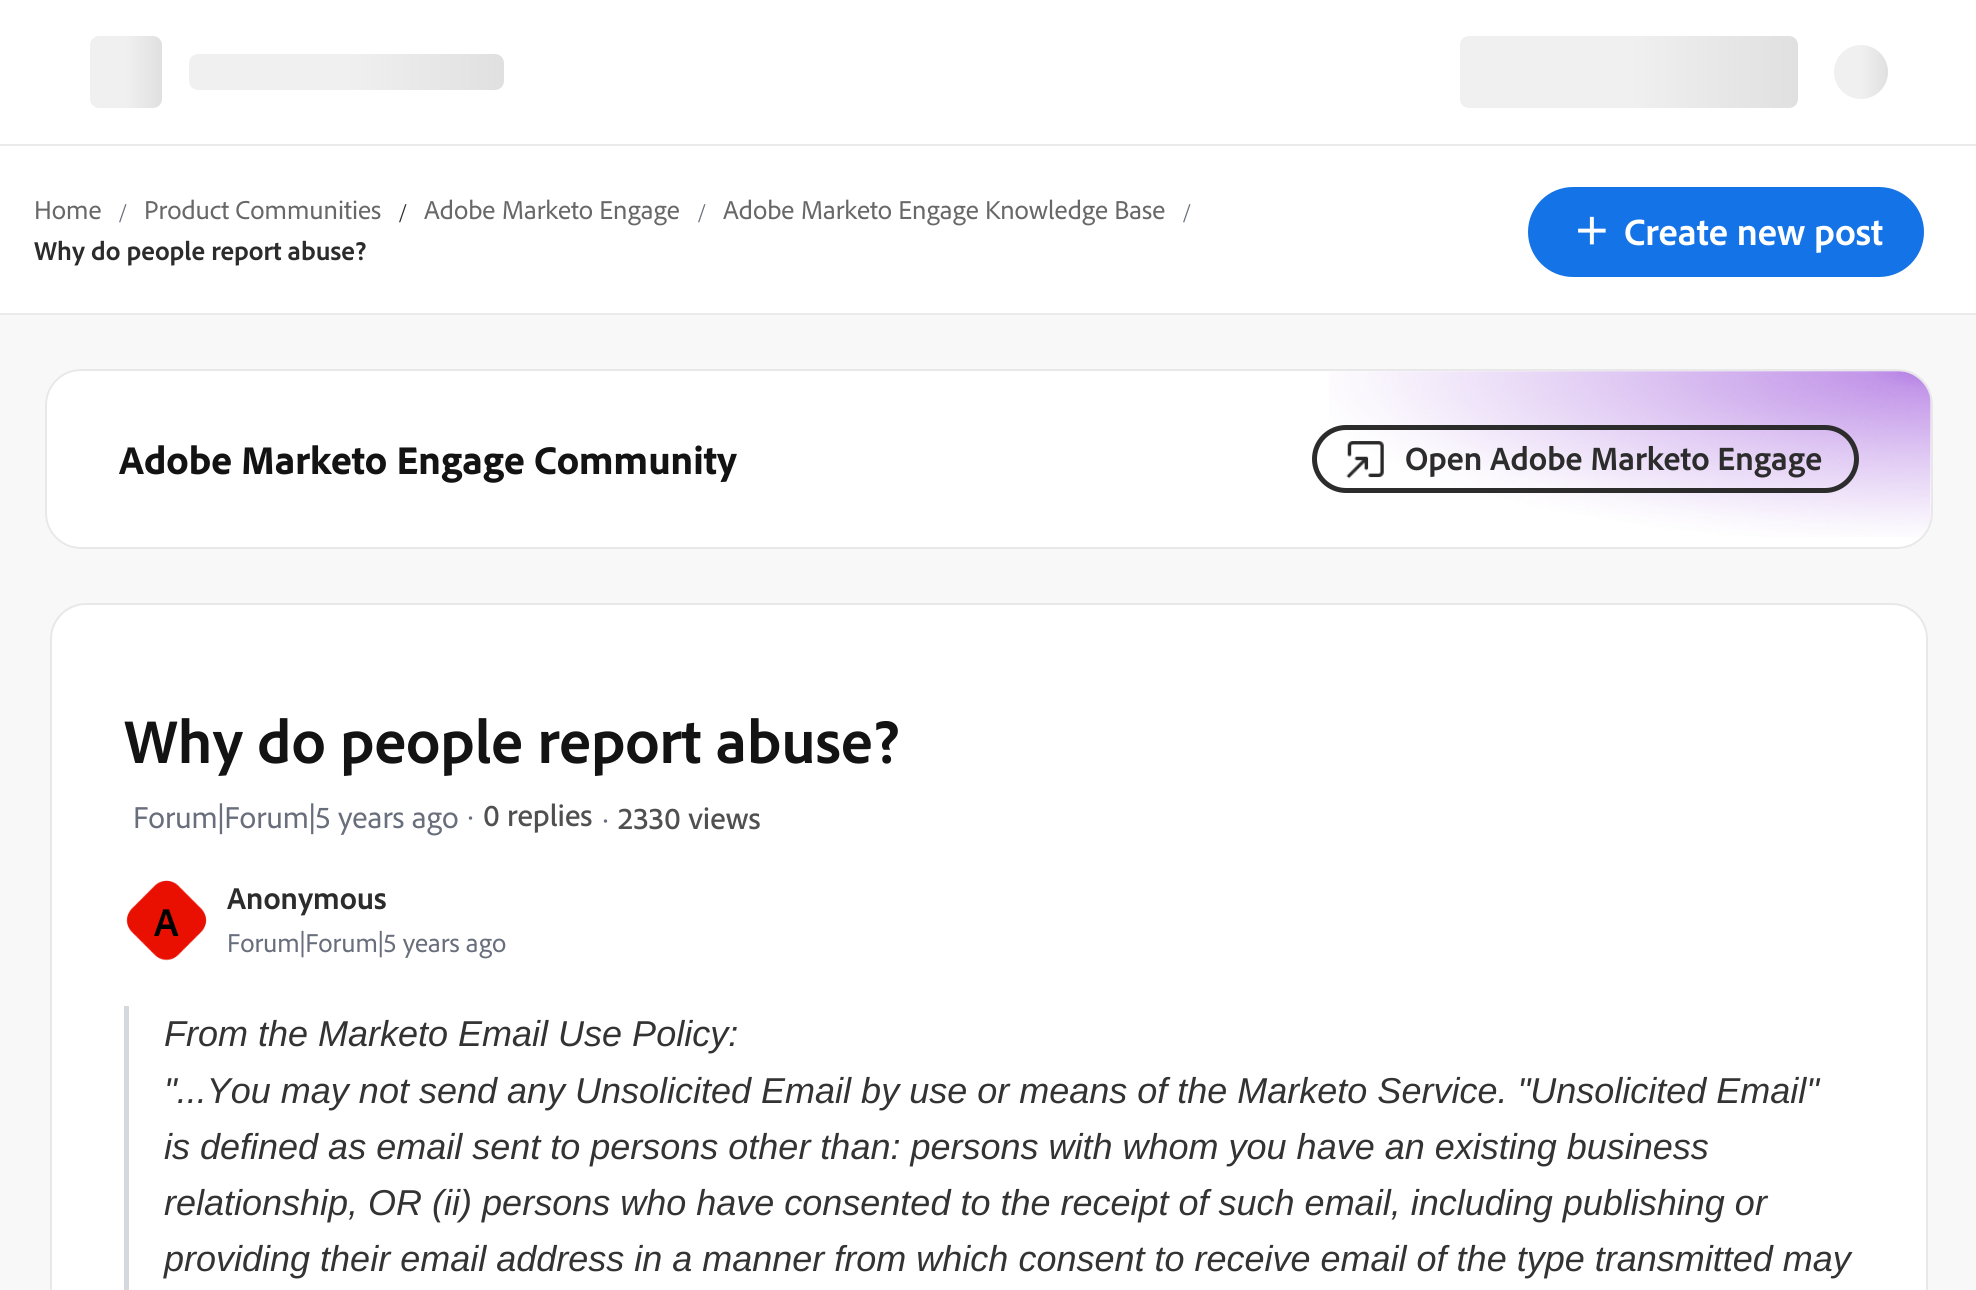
import math
import cairo



def rounded_rect(context, x, y, w, h, r):
    context.new_sub_path()
    for i, (u, v) in enumerate([(x + w - r, y + h - r), (x + r, y + h - r), (x + r, y + r), (x + w - r, y + r)]):
        context.arc(u, v, r, i * math.pi / 2, (i + 1) * math.pi / 2)
    context.close_path()


def draw_image(context, path, x, y, w, h):
    context.save()
    context.set_source_surface(cairo.ImageSurface.create_from_png(path), x, y)
    context.rectangle(x, y, w, h)
    context.fill()
    context.restore()


def draw(context):
    context.set_source_rgb(248 / 255, 248 / 255, 248 / 255)
    context.paint()
    context.set_source_rgb(1, 1, 1)
    context.rectangle(0, 0, 1976, 144)
    context.fill()
    context.set_source_rgb(234 / 255, 234 / 255, 234 / 255)
    context.rectangle(0, 144, 1976, 2)
    context.fill()
    gradient = cairo.LinearGradient(90, 72, 234, 72)
    gradient.add_color_stop_rgba(0.25, 240 / 255, 240 / 255, 240 / 255, 1)
    gradient.add_color_stop_rgba(0.5, 224 / 255, 224 / 255, 224 / 255, 1)
    gradient.add_color_stop_rgba(0.75, 240 / 255, 240 / 255, 240 / 255, 1)
    context.set_source(gradient)
    rounded_rect(context, 90, 36, 72, 72, 9)
    context.fill()
    gradient = cairo.LinearGradient(189, 72, 819, 72)
    gradient.add_color_stop_rgba(0.25, 240 / 255, 240 / 255, 240 / 255, 1)
    gradient.add_color_stop_rgba(0.5, 224 / 255, 224 / 255, 224 / 255, 1)
    gradient.add_color_stop_rgba(0.75, 240 / 255, 240 / 255, 240 / 255, 1)
    context.set_source(gradient)
    rounded_rect(context, 189, 54, 315, 36, 9)
    context.fill()
    gradient = cairo.LinearGradient(1460, 72, 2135, 72)
    gradient.add_color_stop_rgba(0.25, 240 / 255, 240 / 255, 240 / 255, 1)
    gradient.add_color_stop_rgba(0.5, 224 / 255, 224 / 255, 224 / 255, 1)
    gradient.add_color_stop_rgba(0.75, 240 / 255, 240 / 255, 240 / 255, 1)
    context.set_source(gradient)
    rounded_rect(context, 1460, 36, 338, 72, 9)
    context.fill()
    gradient = cairo.LinearGradient(1834, 72, 1942, 72)
    gradient.add_color_stop_rgba(0.25, 240 / 255, 240 / 255, 240 / 255, 1)
    gradient.add_color_stop_rgba(0.5, 224 / 255, 224 / 255, 224 / 255, 1)
    gradient.add_color_stop_rgba(0.75, 240 / 255, 240 / 255, 240 / 255, 1)
    context.set_source(gradient)
    context.arc(1861, 72, 27, 0, 2 * math.pi)
    context.fill()
    context.set_source_rgb(1, 1, 1)
    context.rectangle(0, 146, 1976, 167)
    context.fill()
    context.set_source_rgb(234 / 255, 234 / 255, 234 / 255)
    context.rectangle(0, 313, 1976, 2)
    context.fill()
    context.set_source_rgb(20 / 255, 115 / 255, 230 / 255)
    rounded_rect(context, 1528, 187, 396, 90, 45)
    context.fill()
    draw_image(context, "images/1.png", 1578, 216, 28, 29)
    context.set_source_rgb(1, 1, 1)
    rounded_rect(context, 45, 369, 1888, 180, 36)
    context.fill()
    draw_image(context, "images/2.png", 1329, 371, 602, 166)
    rounded_rect(context, 46, 370, 1886, 178, 35)
    context.set_source_rgb(232 / 255, 232 / 255, 232 / 255)
    context.stroke()
    rounded_rect(context, 1314.5, 427.5, 542, 63, 31.5)
    context.set_source_rgb(44 / 255, 44 / 255, 44 / 255)
    context.set_line_width(5)
    context.stroke()
    draw_image(context, "images/3.png", 1346, 441, 38, 38)
    context.set_source_rgb(1, 1, 1)
    rounded_rect(context, 51, 604, 1876, 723, 35)
    context.fill_preserve()
    context.set_source_rgb(232 / 255, 232 / 255, 232 / 255)
    context.set_line_width(2)
    context.stroke()
    draw_image(context, "images/4.png", 126, 880, 81, 81)
    context.set_source_rgb(213 / 255, 217 / 255, 222 / 255)
    context.rectangle(124, 1006, 5, 284)
    context.fill()
    context.select_font_face("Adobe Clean")
    context.set_font_size(27)
    context.set_source_rgb(104 / 255, 104 / 255, 104 / 255)
    context.move_to(34, 219)
    context.show_text("Home")
    context.select_font_face("Liberation Serif")
    context.set_source_rgb(105 / 255, 110 / 255, 124 / 255)
    context.move_to(119, 222)
    context.show_text("/")
    context.select_font_face("Adobe Clean")
    context.set_source_rgb(104 / 255, 104 / 255, 104 / 255)
    context.move_to(144, 219)
    context.show_text("Product Communities")
    context.select_font_face("Liberation Serif")
    context.set_source_rgb(44 / 255, 44 / 255, 44 / 255)
    context.move_to(399, 222)
    context.show_text("/")
    context.select_font_face("Adobe Clean")
    context.set_source_rgb(104 / 255, 104 / 255, 104 / 255)
    context.move_to(424, 219)
    context.show_text("Adobe Marketo Engage")
    context.select_font_face("Liberation Serif")
    context.set_source_rgb(105 / 255, 110 / 255, 124 / 255)
    context.move_to(698, 222)
    context.show_text("/")
    context.select_font_face("Adobe Clean")
    context.set_source_rgb(104 / 255, 104 / 255, 104 / 255)
    context.move_to(723, 219)
    context.show_text("Adobe Marketo Engage Knowledge Base")
    context.select_font_face("Liberation Serif")
    context.set_source_rgb(105 / 255, 110 / 255, 124 / 255)
    context.move_to(1183, 222)
    context.show_text("/")
    context.select_font_face("Adobe Clean", cairo.FontSlant.NORMAL, cairo.FontWeight.BOLD)
    context.set_source_rgb(44 / 255, 44 / 255, 44 / 255)
    context.move_to(34, 260)
    context.show_text("Why do people report abuse?")
    context.set_font_size(38.25)
    context.set_source_rgb(1, 1, 1)
    context.move_to(1624, 245)
    context.show_text("Create new post")
    context.select_font_face("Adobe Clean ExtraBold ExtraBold")
    context.set_font_size(40.5)
    context.set_source_rgb(19 / 255, 19 / 255, 19 / 255)
    context.move_to(119, 474)
    context.show_text("Adobe Marketo Engage Community")
    context.select_font_face("Adobe Clean", cairo.FontSlant.NORMAL, cairo.FontWeight.BOLD)
    context.set_font_size(33.75)
    context.set_source_rgb(44 / 255, 44 / 255, 44 / 255)
    context.move_to(1405, 470)
    context.show_text("Open Adobe Marketo Engage")
    context.set_font_size(63)
    context.set_source_rgb(19 / 255, 19 / 255, 19 / 255)
    context.move_to(124, 763)
    context.show_text("Why do people report abuse?")
    context.select_font_face("Adobe Clean")
    context.set_font_size(31.5)
    context.set_source_rgb(105 / 255, 110 / 255, 124 / 255)
    context.move_to(133, 828)
    context.show_text("Forum|Forum|5 years ago")
    context.move_to(467, 826)
    context.show_text("·")
    context.select_font_face("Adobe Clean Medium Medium")
    context.set_source_rgb(80 / 255, 80 / 255, 80 / 255)
    context.move_to(483, 826)
    context.show_text("0 replies")
    context.select_font_face("Adobe Clean")
    context.set_source_rgb(105 / 255, 110 / 255, 124 / 255)
    context.move_to(602, 829)
    context.show_text("·")
    context.select_font_face("Adobe Clean Medium Medium")
    context.set_source_rgb(80 / 255, 80 / 255, 80 / 255)
    context.move_to(618, 829)
    context.show_text("2330 views")
    context.select_font_face("Adobe Clean", cairo.FontSlant.NORMAL, cairo.FontWeight.BOLD)
    context.set_font_size(40.5)
    context.set_source_rgb(0, 0, 0)
    context.move_to(154, 936)
    context.show_text("A")
    context.set_font_size(31.5)
    context.set_source_rgb(44 / 255, 44 / 255, 44 / 255)
    context.move_to(227, 909)
    context.show_text("Anonymous")
    context.select_font_face("Adobe Clean")
    context.set_font_size(27)
    context.set_source_rgb(105 / 255, 110 / 255, 124 / 255)
    context.move_to(227, 952)
    context.show_text("Forum|Forum|5 years ago")
    context.select_font_face("Liberation Sans", cairo.FontSlant.ITALIC)
    context.set_font_size(36)
    context.set_source_rgb(51 / 255, 51 / 255, 51 / 255)
    context.move_to(164, 1046)
    context.show_text("From the Marketo Email Use Policy:")
    context.move_to(164, 1103)
    context.show_text("\"...You may not send any Unsolicited Email by use or means of the Marketo Service. \"Unsolicited Email\"")
    context.move_to(164, 1159)
    context.show_text("is defined as email sent to persons other than: persons with whom you have an existing business")
    context.move_to(164, 1215)
    context.show_text("relationship, OR (ii) persons who have consented to the receipt of such email, including publishing or")
    context.move_to(164, 1271)
    context.show_text("providing their email address in a manner from which consent to receive email of the type transmitted may")


surface = cairo.ImageSurface(cairo.Format.RGB24, 1976, 1290)
context = cairo.Context(surface)
options = cairo.FontOptions()
options.set_hint_metrics(cairo.HintMetrics.OFF)
options.set_hint_style(cairo.HintStyle.NONE)
context.set_font_options(options)
context.set_miter_limit(4)
draw(context)
surface.write_to_png("out.png")
